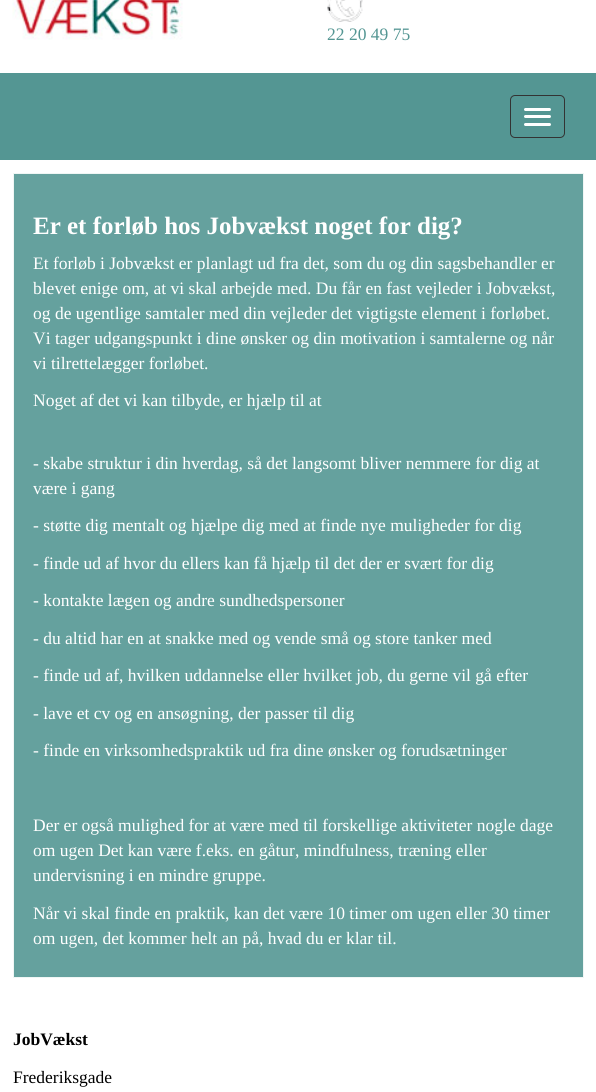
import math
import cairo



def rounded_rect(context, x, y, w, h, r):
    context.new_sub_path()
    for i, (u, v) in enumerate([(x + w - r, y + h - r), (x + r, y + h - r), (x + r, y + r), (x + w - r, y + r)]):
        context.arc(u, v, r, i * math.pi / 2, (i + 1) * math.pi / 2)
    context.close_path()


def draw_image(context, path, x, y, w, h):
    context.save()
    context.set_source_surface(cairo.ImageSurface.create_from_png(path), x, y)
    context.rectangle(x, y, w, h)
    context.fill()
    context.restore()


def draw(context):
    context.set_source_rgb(1, 1, 1)
    context.paint()
    draw_image(context, "images/1.png", 12, 0, 171, 40)
    draw_image(context, "images/2.png", 327, 0, 36, 22)
    context.set_source_rgb(84 / 255, 150 / 255, 147 / 255)
    context.rectangle(0, 73, 596, 87)
    context.fill()
    rounded_rect(context, 510.5, 95.5, 54, 42, 4.5)
    context.set_source_rgb(51 / 255, 51 / 255, 51 / 255)
    context.set_line_width(1)
    context.stroke()
    context.set_source_rgb(1, 1, 1)
    rounded_rect(context, 524, 108, 27, 3, 1.5)
    context.fill()
    rounded_rect(context, 524, 115, 27, 3, 1.5)
    context.fill()
    rounded_rect(context, 524, 123, 27, 3, 1.5)
    context.fill()
    context.set_source_rgb(101 / 255, 161 / 255, 158 / 255)
    context.rectangle(13.5, 173.5, 570, 804)
    context.fill_preserve()
    context.set_source_rgb(240 / 255, 246 / 255, 245 / 255)
    context.stroke()
    context.select_font_face("Liberation Serif")
    context.set_font_size(17.5)
    context.set_source_rgb(84 / 255, 150 / 255, 147 / 255)
    context.move_to(327, 40)
    context.show_text("22 20 49 75")
    context.select_font_face("Liberation Serif", cairo.FontSlant.NORMAL, cairo.FontWeight.BOLD)
    context.set_font_size(25)
    context.set_source_rgb(1, 1, 1)
    context.move_to(33, 234)
    context.show_text("Er et forløb hos Jobvækst noget for dig?")
    context.select_font_face("Liberation Serif")
    context.set_font_size(17.5)
    context.move_to(33, 269)
    context.show_text("Et forløb i Jobvækst er planlagt ud fra det, som du og din sagsbehandler er")
    context.move_to(33, 294)
    context.show_text("blevet enige om, at vi skal arbejde med. Du får en fast vejleder i Jobvækst,")
    context.move_to(33, 319)
    context.show_text("og de ugentlige samtaler med din vejleder det vigtigste element i forløbet.")
    context.move_to(33, 344)
    context.show_text("Vi tager udgangspunkt i dine ønsker og din motivation i samtalerne og når")
    context.move_to(33, 369)
    context.show_text("vi tilrettelægger forløbet.")
    context.move_to(33, 406)
    context.show_text("Noget af det vi kan tilbyde, er hjælp til at")
    context.move_to(33, 469)
    context.show_text("- skabe struktur i din hverdag, så det langsomt bliver nemmere for dig at")
    context.move_to(33, 494)
    context.show_text("være i gang")
    context.move_to(33, 531)
    context.show_text("- støtte dig mentalt og hjælpe dig med at finde nye muligheder for dig")
    context.move_to(33, 569)
    context.show_text("- finde ud af hvor du ellers kan få hjælp til det der er svært for dig")
    context.move_to(33, 606)
    context.show_text("- kontakte lægen og andre sundhedspersoner")
    context.move_to(33, 644)
    context.show_text("- du altid har en at snakke med og vende små og store tanker med")
    context.move_to(33, 681)
    context.show_text("- finde ud af, hvilken uddannelse eller hvilket job, du gerne vil gå efter")
    context.move_to(33, 719)
    context.show_text("- lave et cv og en ansøgning, der passer til dig")
    context.move_to(33, 756)
    context.show_text("- finde en virksomhedspraktik ud fra dine ønsker og forudsætninger")
    context.move_to(33, 831)
    context.show_text("Der er også mulighed for at være med til forskellige aktiviteter nogle dage")
    context.move_to(33, 856)
    context.show_text("om ugen Det kan være f.eks. en gåtur, mindfulness, træning eller")
    context.move_to(33, 881)
    context.show_text("undervisning i en mindre gruppe.")
    context.move_to(33, 919)
    context.show_text("Når vi skal finde en praktik, kan det være 10 timer om ugen eller 30 timer")
    context.move_to(33, 944)
    context.show_text("om ugen, det kommer helt an på, hvad du er klar til.")
    context.select_font_face("Liberation Serif", cairo.FontSlant.NORMAL, cairo.FontWeight.BOLD)
    context.set_source_rgb(0, 0, 0)
    context.move_to(13, 1045)
    context.show_text("JobVækst")
    context.select_font_face("Liberation Serif")
    context.move_to(13, 1083)
    context.show_text("Frederiksgade")


surface = cairo.ImageSurface(cairo.Format.RGB24, 596, 1092)
context = cairo.Context(surface)
options = cairo.FontOptions()
options.set_hint_metrics(cairo.HintMetrics.OFF)
options.set_hint_style(cairo.HintStyle.NONE)
context.set_font_options(options)
context.set_miter_limit(4)
draw(context)
surface.write_to_png("out.png")
